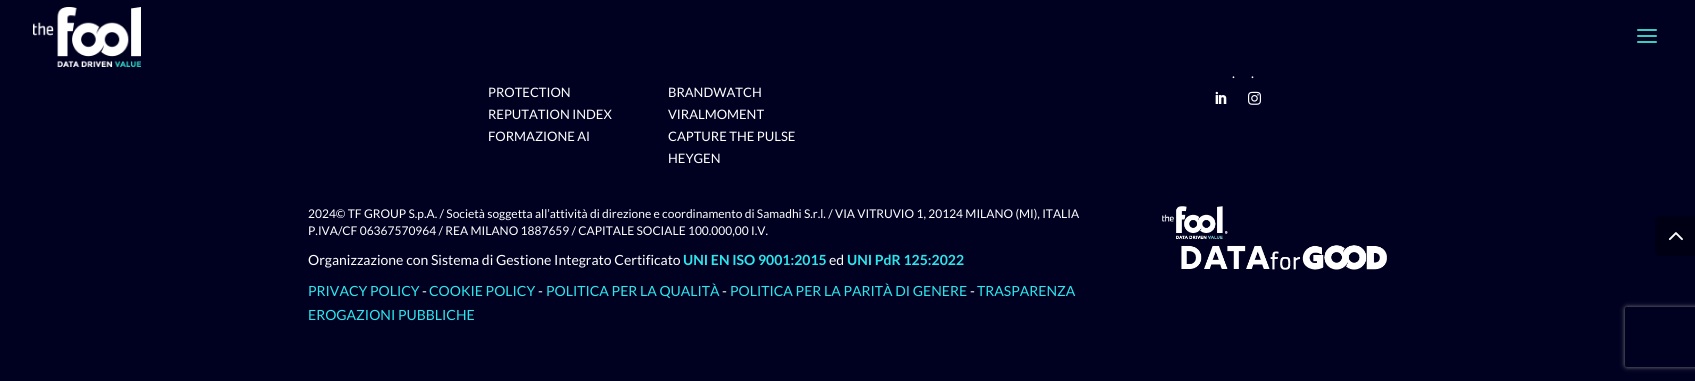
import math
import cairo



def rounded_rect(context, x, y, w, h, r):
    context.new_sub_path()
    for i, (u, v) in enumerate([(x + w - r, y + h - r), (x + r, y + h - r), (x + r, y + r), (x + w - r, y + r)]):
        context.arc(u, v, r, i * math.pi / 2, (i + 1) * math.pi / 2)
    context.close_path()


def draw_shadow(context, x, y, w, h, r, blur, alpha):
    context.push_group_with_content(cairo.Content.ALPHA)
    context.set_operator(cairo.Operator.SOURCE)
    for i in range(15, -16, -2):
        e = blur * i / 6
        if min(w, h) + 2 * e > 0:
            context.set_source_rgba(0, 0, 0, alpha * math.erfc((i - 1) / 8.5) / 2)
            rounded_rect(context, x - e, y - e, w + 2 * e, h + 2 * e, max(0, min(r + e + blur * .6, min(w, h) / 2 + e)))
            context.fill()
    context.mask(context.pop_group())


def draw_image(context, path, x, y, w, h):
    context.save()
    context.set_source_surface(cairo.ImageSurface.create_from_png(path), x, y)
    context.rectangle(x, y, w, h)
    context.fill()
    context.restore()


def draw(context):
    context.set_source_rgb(0, 0, 33 / 255)
    context.paint()
    draw_image(context, "images/1.png", 33, 7, 108, 60)
    draw_image(context, "images/2.png", 1637, 29, 20, 14)
    draw_image(context, "images/3.png", 1215, 91, 12, 13)
    draw_image(context, "images/4.png", 1248, 91, 13, 14)
    draw_image(context, "images/5.png", 1162, 206, 225, 64)
    context.set_source_rgb(0, 0, 20 / 255)
    context.new_path()
    context.move_to(1660, 216)
    context.line_to(1695, 216)
    context.line_to(1695, 256)
    context.line_to(1660, 256)
    context.curve_to(1657, 256, 1655, 254, 1655, 251)
    context.line_to(1655, 221)
    context.curve_to(1655, 218, 1657, 216, 1660, 216)
    context.close_path()
    context.fill()
    draw_image(context, "images/6.png", 1668, 232, 15, 9)
    context.save()
    context.set_fill_rule(cairo.FillRule.EVEN_ODD)
    context.new_path()
    context.move_to(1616, 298)
    context.line_to(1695, 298)
    context.line_to(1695, 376)
    context.line_to(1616, 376)
    context.close_path()
    context.move_to(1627, 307)
    context.line_to(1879, 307)
    context.curve_to(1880, 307, 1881, 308, 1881, 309)
    context.line_to(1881, 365)
    context.curve_to(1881, 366, 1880, 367, 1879, 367)
    context.line_to(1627, 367)
    context.curve_to(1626, 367, 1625, 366, 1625, 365)
    context.line_to(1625, 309)
    context.curve_to(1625, 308, 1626, 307, 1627, 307)
    context.close_path()
    context.clip()
    context.set_source_rgb(128 / 255, 128 / 255, 128 / 255)
    draw_shadow(context, 1625, 307, 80, 60, 2, 2.5, 1)
    context.restore()
    context.select_font_face("Lato")
    context.set_font_size(14)
    context.set_source_rgb(1, 1, 1)
    context.move_to(1232, 78)
    context.show_text(".")
    context.move_to(1251, 78)
    context.show_text(".")
    context.set_font_size(13)
    context.move_to(488, 97)
    context.show_text("PROTECTION")
    context.move_to(488, 119)
    context.show_text("REPUTATION INDEX")
    context.move_to(488, 141)
    context.show_text("FORMAZIONE AI")
    context.move_to(668, 97)
    context.show_text("BRANDWATCH")
    context.move_to(668, 119)
    context.show_text("VIRALMOMENT")
    context.move_to(668, 141)
    context.show_text("CAPTURE THE PULSE")
    context.move_to(668, 163)
    context.show_text("HEYGEN")
    context.set_font_size(12)
    context.move_to(308, 218)
    context.show_text("2024© TF GROUP S.p.A. / Società soggetta all’attività di direzione e coordinamento di Samadhi S.r.l. / VIA VITRUVIO 1, 20124 MILANO (MI), ITALIA")
    context.move_to(308, 235)
    context.show_text("P.IVA/CF 06367570964 / REA MILANO 1887659 / CAPITALE SOCIALE 100.000,00 I.V.")
    context.set_font_size(14)
    context.move_to(308, 265)
    context.show_text("Organizzazione con Sistema di Gestione Integrato Certificato")
    context.select_font_face("Lato", cairo.FontSlant.NORMAL, cairo.FontWeight.BOLD)
    context.set_source_rgb(45 / 255, 230 / 255, 237 / 255)
    context.move_to(683, 265)
    context.show_text("UNI EN ISO 9001:2015")
    context.select_font_face("Lato")
    context.set_source_rgb(1, 1, 1)
    context.move_to(829, 265)
    context.show_text("ed")
    context.select_font_face("Lato", cairo.FontSlant.NORMAL, cairo.FontWeight.BOLD)
    context.set_source_rgb(45 / 255, 230 / 255, 237 / 255)
    context.move_to(847, 265)
    context.show_text("UNI PdR 125:2022")
    context.select_font_face("Lato")
    context.move_to(308, 296)
    context.show_text("PRIVACY POLICY")
    context.set_source_rgb(1, 1, 1)
    context.move_to(422, 296)
    context.show_text("-")
    context.set_source_rgb(45 / 255, 230 / 255, 237 / 255)
    context.move_to(429, 296)
    context.show_text("COOKIE POLICY")
    context.set_source_rgb(1, 1, 1)
    context.move_to(538, 296)
    context.show_text("-")
    context.set_source_rgb(45 / 255, 230 / 255, 237 / 255)
    context.move_to(546, 296)
    context.show_text("POLITICA PER LA QUALITÀ")
    context.set_source_rgb(1, 1, 1)
    context.move_to(722, 296)
    context.show_text("-")
    context.set_source_rgb(45 / 255, 230 / 255, 237 / 255)
    context.move_to(730, 296)
    context.show_text("POLITICA PER LA PARITÀ DI GENERE")
    context.set_source_rgb(1, 1, 1)
    context.move_to(970, 296)
    context.show_text("-")
    context.set_source_rgb(45 / 255, 230 / 255, 237 / 255)
    context.move_to(977, 296)
    context.show_text("TRASPARENZA")
    context.move_to(308, 320)
    context.show_text("EROGAZIONI PUBBLICHE")


surface = cairo.ImageSurface(cairo.Format.RGB24, 1695, 381)
context = cairo.Context(surface)
options = cairo.FontOptions()
options.set_hint_metrics(cairo.HintMetrics.OFF)
options.set_hint_style(cairo.HintStyle.NONE)
context.set_font_options(options)
context.set_miter_limit(4)
draw(context)
surface.write_to_png("out.png")
